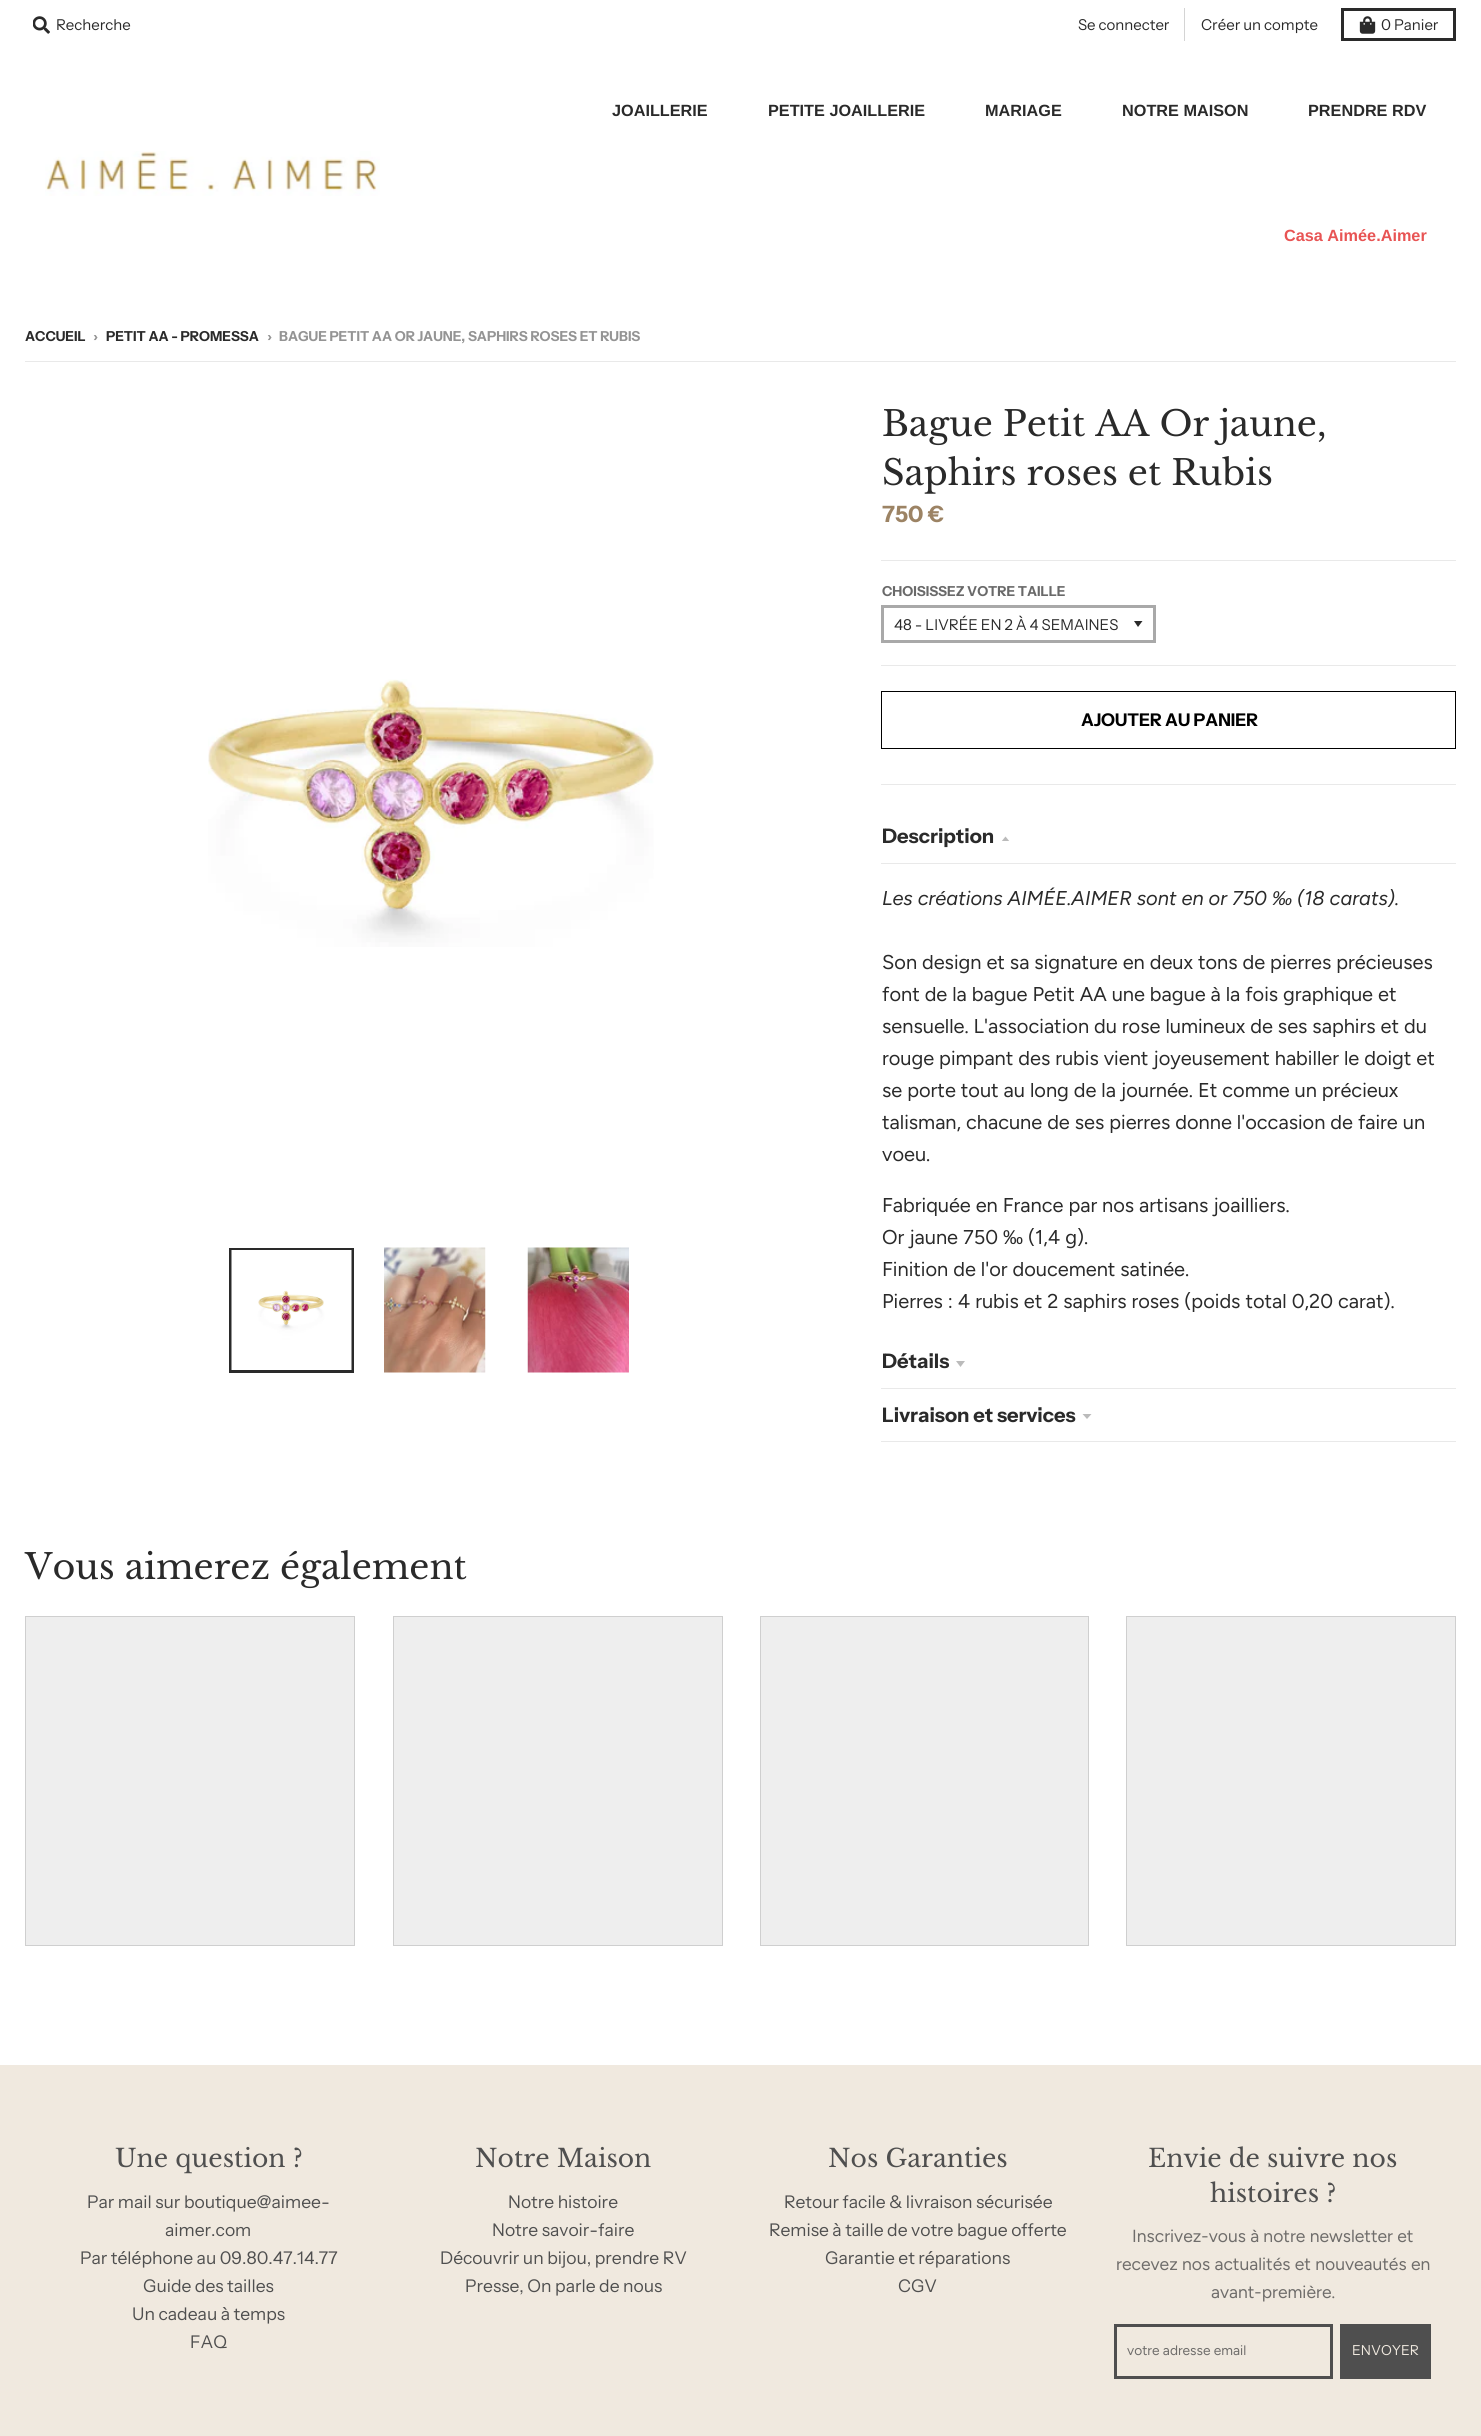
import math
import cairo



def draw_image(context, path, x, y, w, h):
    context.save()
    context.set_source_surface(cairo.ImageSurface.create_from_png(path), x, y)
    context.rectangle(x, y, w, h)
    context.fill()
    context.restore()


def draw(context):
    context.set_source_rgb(1, 1, 1)
    context.paint()
    draw_image(context, "images/1.png", 33, 16, 17, 18)
    context.set_source_rgb(212 / 255, 212 / 255, 212 / 255)
    context.rectangle(1184, 8, 1, 33)
    context.fill()
    context.rectangle(1342.5, 9.5, 112, 30)
    context.set_source_rgb(42 / 255, 42 / 255, 42 / 255)
    context.set_line_width(3)
    context.stroke()
    draw_image(context, "images/2.png", 1359, 16, 17, 18)
    draw_image(context, "images/3.png", 45, 151, 335, 45)
    context.set_source_rgb(233 / 255, 233 / 255, 233 / 255)
    context.rectangle(25, 361, 1431, 1)
    context.fill()
    draw_image(context, "images/4.png", 208, 679, 446, 268)
    context.rectangle(230.5, 1249.5, 122, 122)
    context.set_source_rgb(42 / 255, 42 / 255, 42 / 255)
    context.stroke()
    draw_image(context, "images/5.png", 231, 1250, 121, 120)
    draw_image(context, "images/6.png", 384, 1247, 102, 126)
    draw_image(context, "images/7.png", 527, 1247, 102, 126)
    context.set_source_rgb(233 / 255, 233 / 255, 233 / 255)
    context.rectangle(881, 784, 575, 1)
    context.fill()
    context.rectangle(881, 560, 575, 1)
    context.fill()
    context.rectangle(881, 665, 575, 1)
    context.fill()
    context.set_source_rgb(42 / 255, 42 / 255, 42 / 255)
    context.new_path()
    context.move_to(1134, 621)
    context.line_to(1138, 627)
    context.line_to(1142.5, 621)
    context.close_path()
    context.fill()
    context.rectangle(882.5, 606.5, 272, 35)
    context.set_source_rgb(169 / 255, 169 / 255, 169 / 255)
    context.stroke()
    context.rectangle(881.5, 691.5, 574, 57)
    context.set_source_rgb(0, 0, 0)
    context.set_line_width(1)
    context.stroke()
    context.set_source_rgb(233 / 255, 233 / 255, 233 / 255)
    context.rectangle(881, 863, 575, 1)
    context.fill()
    context.save()
    context.rectangle(1001, 835, 10, 6)
    context.clip()
    context.set_source_rgb(187 / 255, 187 / 255, 187 / 255)
    context.new_path()
    context.move_to(1001, 842)
    context.line_to(1005.5, 836.5)
    context.line_to(1010, 842)
    context.close_path()
    context.fill()
    context.restore()
    context.rectangle(881, 1388, 575, 1)
    context.fill()
    context.set_source_rgb(187 / 255, 187 / 255, 187 / 255)
    context.new_path()
    context.move_to(956, 1361)
    context.line_to(960.5, 1367)
    context.line_to(965, 1361)
    context.close_path()
    context.fill()
    context.set_source_rgb(233 / 255, 233 / 255, 233 / 255)
    context.rectangle(881, 1441, 575, 1)
    context.fill()
    context.set_source_rgb(187 / 255, 187 / 255, 187 / 255)
    context.new_path()
    context.move_to(1082.5, 1414)
    context.line_to(1087, 1419)
    context.line_to(1091.5, 1414)
    context.close_path()
    context.fill()
    context.set_source_rgb(238 / 255, 238 / 255, 238 / 255)
    context.rectangle(25.5, 1616.5, 329, 329)
    context.fill_preserve()
    context.set_source_rgb(207 / 255, 207 / 255, 207 / 255)
    context.stroke()
    context.set_source_rgb(238 / 255, 238 / 255, 238 / 255)
    context.rectangle(393.5, 1616.5, 329, 329)
    context.fill_preserve()
    context.set_source_rgb(207 / 255, 207 / 255, 207 / 255)
    context.stroke()
    context.set_source_rgb(238 / 255, 238 / 255, 238 / 255)
    context.rectangle(760.5, 1616.5, 328, 329)
    context.fill_preserve()
    context.set_source_rgb(207 / 255, 207 / 255, 207 / 255)
    context.stroke()
    context.set_source_rgb(238 / 255, 238 / 255, 238 / 255)
    context.rectangle(1126.5, 1616.5, 329, 329)
    context.fill_preserve()
    context.set_source_rgb(207 / 255, 207 / 255, 207 / 255)
    context.stroke()
    context.set_source_rgb(240 / 255, 233 / 255, 223 / 255)
    context.rectangle(0, 2065, 1481, 371)
    context.fill()
    context.rectangle(1115.5, 2325.5, 216, 52)
    context.set_source_rgb(79 / 255, 79 / 255, 79 / 255)
    context.set_line_width(3)
    context.stroke()
    context.rectangle(1340, 2324, 91, 55)
    context.fill()
    context.select_font_face("Instrument Sans")
    context.set_font_size(15)
    context.set_source_rgb(42 / 255, 42 / 255, 42 / 255)
    context.move_to(56, 30)
    context.show_text("Recherche")
    context.move_to(1078, 30)
    context.show_text("Se connecter")
    context.move_to(1201, 30)
    context.show_text("Créer un compte")
    context.move_to(1381, 30)
    context.show_text("0 Panier")
    context.select_font_face("Liberation Sans", cairo.FontSlant.NORMAL, cairo.FontWeight.BOLD)
    context.set_font_size(16.25)
    context.move_to(612, 116)
    context.show_text("JOAILLERIE")
    context.move_to(768, 116)
    context.show_text("PETITE JOAILLERIE")
    context.move_to(985, 116)
    context.show_text("MARIAGE")
    context.move_to(1122, 116)
    context.show_text("NOTRE MAISON")
    context.move_to(1308, 116)
    context.show_text("PRENDRE RDV")
    context.set_source_rgb(232 / 255, 84 / 255, 84 / 255)
    context.move_to(1284, 241)
    context.show_text("Casa Aimée.Aimer")
    context.select_font_face("Instrument Sans", cairo.FontSlant.NORMAL, cairo.FontWeight.BOLD)
    context.set_font_size(13.75)
    context.set_source_rgb(42 / 255, 42 / 255, 42 / 255)
    context.move_to(25, 341)
    context.show_text("ACCUEIL")
    context.set_source_rgb(148 / 255, 148 / 255, 148 / 255)
    context.move_to(93, 341)
    context.show_text("›")
    context.set_source_rgb(42 / 255, 42 / 255, 42 / 255)
    context.move_to(106, 341)
    context.show_text("PETIT AA - PROMESSA")
    context.set_source_rgb(148 / 255, 148 / 255, 148 / 255)
    context.move_to(267, 341)
    context.show_text("›")
    context.move_to(279, 341)
    context.show_text("BAGUE PETIT AA OR JAUNE, SAPHIRS ROSES ET RUBIS")
    context.select_font_face("Libre Baskerville")
    context.set_font_size(35)
    context.set_source_rgb(42 / 255, 42 / 255, 42 / 255)
    context.move_to(882, 436)
    context.show_text("Bague Petit AA Or jaune,")
    context.move_to(882, 485)
    context.show_text("Saphirs roses et Rubis")
    context.select_font_face("Instrument Sans", cairo.FontSlant.NORMAL, cairo.FontWeight.BOLD)
    context.set_font_size(22.5)
    context.set_source_rgb(156 / 255, 131 / 255, 100 / 255)
    context.move_to(882, 522)
    context.show_text("750 €")
    context.set_font_size(13.75)
    context.set_source_rgb(105 / 255, 105 / 255, 105 / 255)
    context.move_to(882, 596)
    context.show_text("CHOISISSEZ VOTRE TAILLE")
    context.select_font_face("Instrument Sans")
    context.set_font_size(15)
    context.set_source_rgb(42 / 255, 42 / 255, 42 / 255)
    context.move_to(894, 630)
    context.show_text("48 - LIVRÉE EN 2 À 4 SEMAINES")
    context.select_font_face("Instrument Sans", cairo.FontSlant.NORMAL, cairo.FontWeight.BOLD)
    context.set_font_size(17.5)
    context.set_source_rgb(0, 0, 0)
    context.move_to(1081, 726)
    context.show_text("AJOUTER AU PANIER")
    context.set_font_size(20)
    context.set_source_rgb(42 / 255, 42 / 255, 42 / 255)
    context.move_to(882, 843)
    context.show_text("Description")
    context.select_font_face("Figtree", cairo.FontSlant.ITALIC)
    context.move_to(882, 905)
    context.show_text("Les créations AIMÉE.AIMER sont en or 750")
    context.select_font_face("Liberation Sans", cairo.FontSlant.ITALIC)
    context.move_to(1272, 905)
    context.show_text("‰")
    context.select_font_face("Figtree", cairo.FontSlant.ITALIC)
    context.move_to(1297, 905)
    context.show_text("(18 carats).")
    context.select_font_face("Figtree")
    context.move_to(882, 969)
    context.show_text("Son design et sa signature en deux tons de pierres précieuses")
    context.move_to(882, 1001)
    context.show_text("font de la bague Petit AA une bague à la fois graphique et")
    context.move_to(882, 1033)
    context.show_text("sensuelle. L'association du rose lumineux de ses saphirs et du")
    context.move_to(882, 1065)
    context.show_text("rouge pimpant des rubis vient joyeusement habiller le doigt et")
    context.move_to(882, 1097)
    context.show_text("se porte tout au long de la journée. Et comme un précieux")
    context.move_to(882, 1129)
    context.show_text("talisman, chacune de ses pierres donne l'occasion de faire un")
    context.move_to(882, 1161)
    context.show_text("voeu.")
    context.move_to(882, 1212)
    context.show_text("Fabriquée en France par nos artisans joailliers.")
    context.move_to(882, 1244)
    context.show_text("Or jaune 750")
    context.select_font_face("Liberation Sans")
    context.move_to(1003, 1244)
    context.show_text("‰")
    context.select_font_face("Figtree")
    context.move_to(1028, 1244)
    context.show_text("(1,4 g).")
    context.move_to(882, 1276)
    context.show_text("Finition de l'or doucement satinée.")
    context.move_to(882, 1308)
    context.show_text("Pierres : 4 rubis et 2 saphirs roses (poids total 0,20 carat).")
    context.select_font_face("Instrument Sans", cairo.FontSlant.NORMAL, cairo.FontWeight.BOLD)
    context.move_to(882, 1368)
    context.show_text("Détails")
    context.move_to(882, 1422)
    context.show_text("Livraison et services")
    context.select_font_face("Libre Baskerville")
    context.set_font_size(35)
    context.move_to(25, 1579)
    context.show_text("Vous aimerez également")
    context.set_font_size(25)
    context.set_source_rgb(79 / 255, 79 / 255, 79 / 255)
    context.move_to(115, 2167)
    context.show_text("Une question ?")
    context.select_font_face("Instrument Sans")
    context.set_font_size(17.5)
    context.move_to(87, 2208)
    context.show_text("Par mail sur boutique@aimee-")
    context.move_to(165, 2236)
    context.show_text("aimer.com")
    context.move_to(80, 2264)
    context.show_text("Par téléphone au 09.80.47.14.77")
    context.move_to(143, 2292)
    context.show_text("Guide des tailles")
    context.move_to(132, 2320)
    context.show_text("Un cadeau à temps")
    context.move_to(190, 2348)
    context.show_text("FAQ")
    context.select_font_face("Libre Baskerville")
    context.set_font_size(25)
    context.move_to(475, 2167)
    context.show_text("Notre Maison")
    context.select_font_face("Instrument Sans")
    context.set_font_size(17.5)
    context.move_to(508, 2208)
    context.show_text("Notre histoire")
    context.move_to(492, 2236)
    context.show_text("Notre savoir-faire")
    context.move_to(440, 2264)
    context.show_text("Découvrir un bijou, prendre RV")
    context.move_to(465, 2292)
    context.show_text("Presse, On parle de nous")
    context.select_font_face("Libre Baskerville")
    context.set_font_size(25)
    context.move_to(828, 2167)
    context.show_text("Nos Garanties")
    context.select_font_face("Instrument Sans")
    context.set_font_size(17.5)
    context.move_to(784, 2208)
    context.show_text("Retour facile & livraison sécurisée")
    context.move_to(769, 2236)
    context.show_text("Remise à taille de votre bague offerte")
    context.move_to(825, 2264)
    context.show_text("Garantie et réparations")
    context.move_to(898, 2292)
    context.show_text("CGV")
    context.select_font_face("Libre Baskerville")
    context.set_font_size(25)
    context.move_to(1148, 2167)
    context.show_text("Envie de suivre nos")
    context.move_to(1210, 2202)
    context.show_text("histoires ?")
    context.select_font_face("Figtree")
    context.set_font_size(17.5)
    context.set_source_rgb(111 / 255, 109 / 255, 107 / 255)
    context.move_to(1132, 2242)
    context.show_text("Inscrivez-vous à notre newsletter et")
    context.move_to(1116, 2270)
    context.show_text("recevez nos actualités et nouveautés en")
    context.move_to(1211, 2298)
    context.show_text("avant-première.")
    context.set_font_size(13.75)
    context.move_to(1127, 2355)
    context.show_text("votre adresse email")
    context.select_font_face("Instrument Sans")
    context.set_source_rgb(240 / 255, 233 / 255, 223 / 255)
    context.move_to(1352, 2355)
    context.show_text("ENVOYER")


surface = cairo.ImageSurface(cairo.Format.RGB24, 1481, 2436)
context = cairo.Context(surface)
options = cairo.FontOptions()
options.set_hint_metrics(cairo.HintMetrics.OFF)
options.set_hint_style(cairo.HintStyle.NONE)
context.set_font_options(options)
context.set_miter_limit(4)
draw(context)
surface.write_to_png("out.png")
